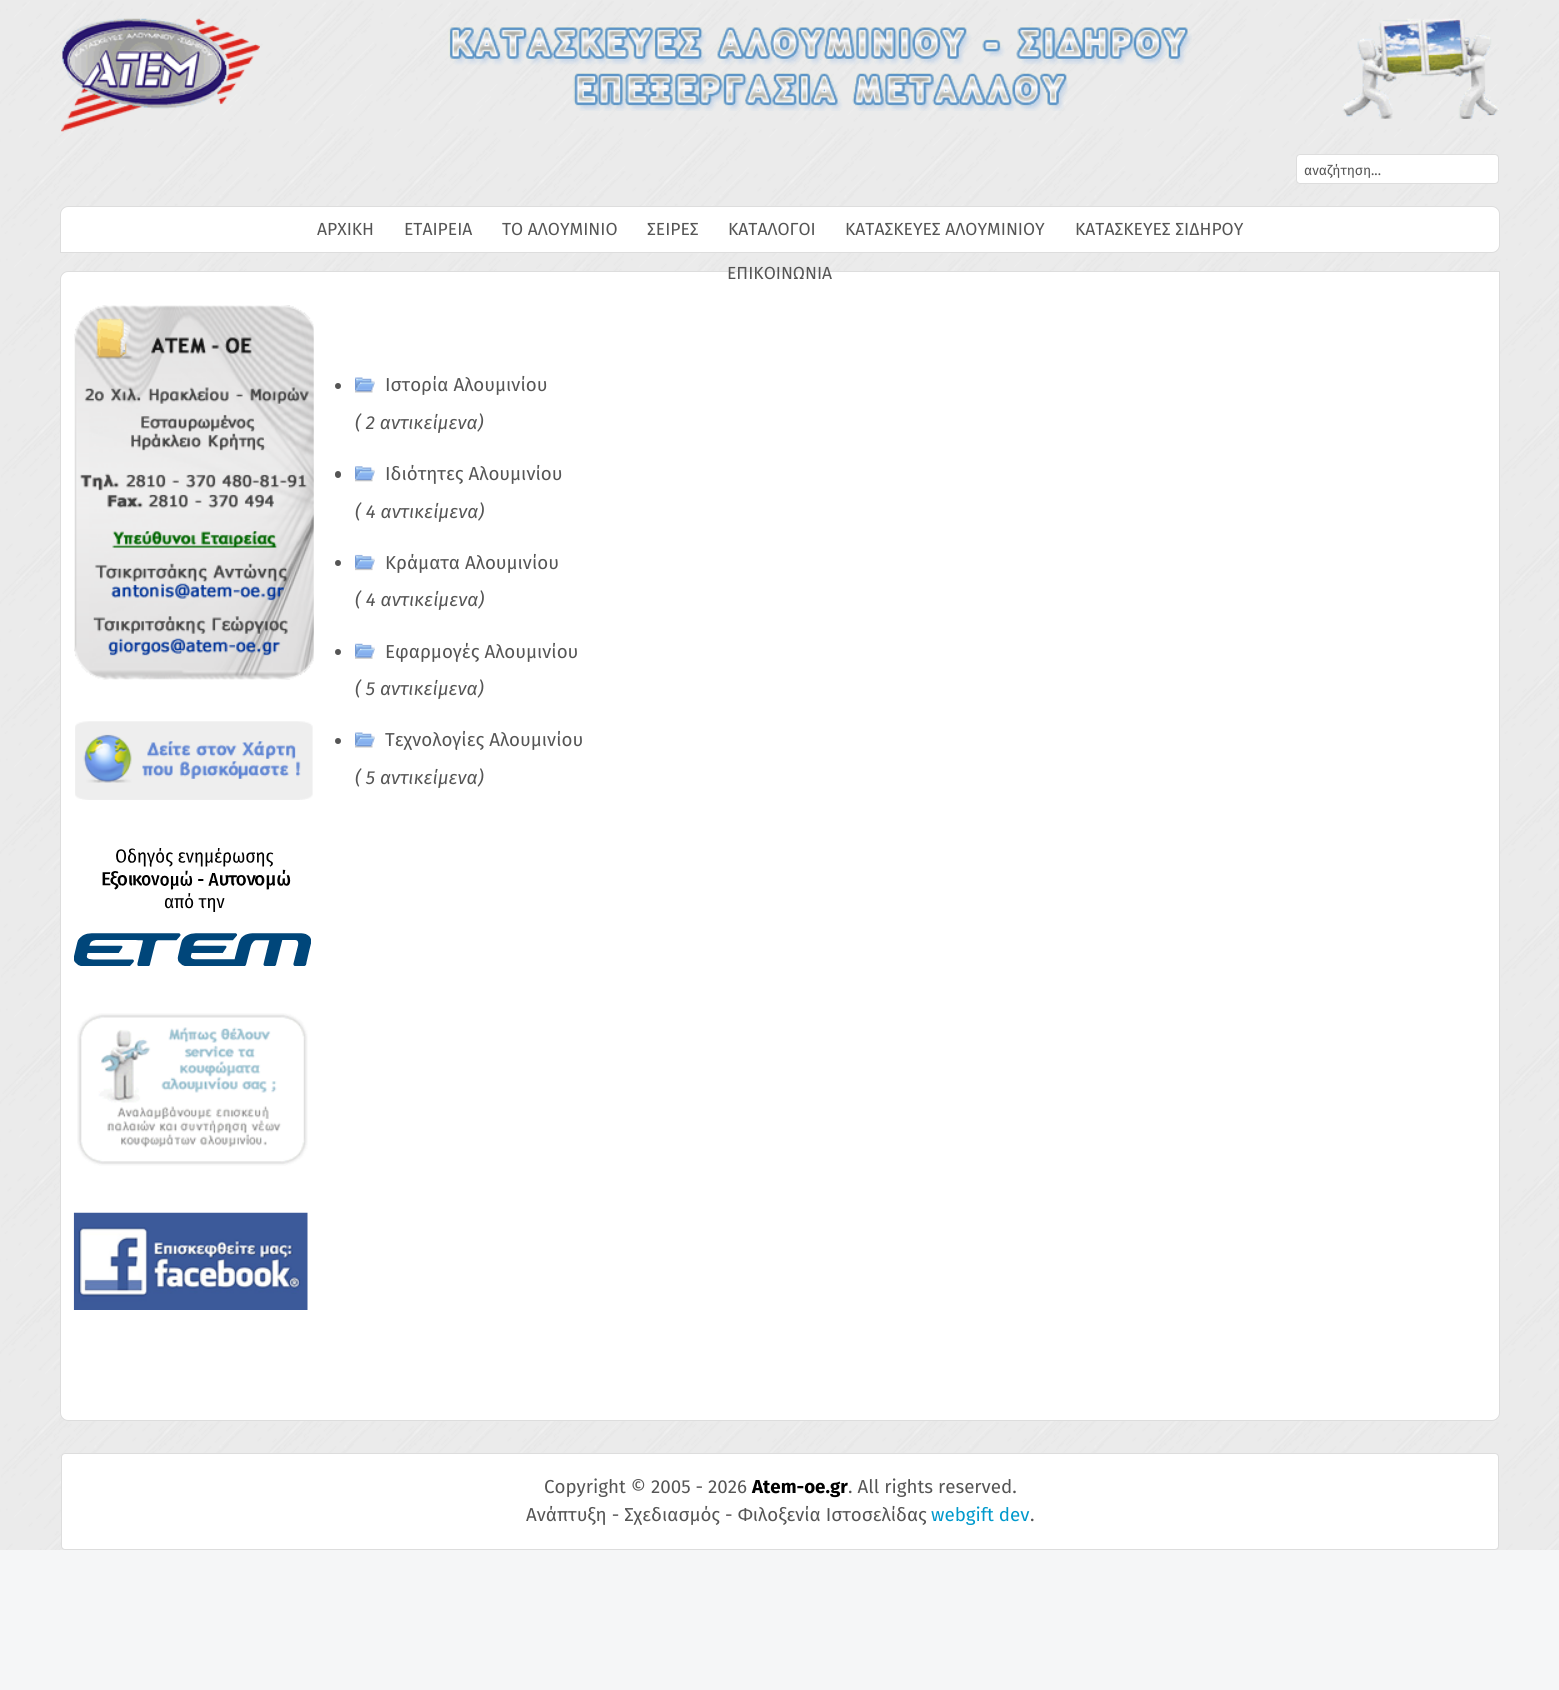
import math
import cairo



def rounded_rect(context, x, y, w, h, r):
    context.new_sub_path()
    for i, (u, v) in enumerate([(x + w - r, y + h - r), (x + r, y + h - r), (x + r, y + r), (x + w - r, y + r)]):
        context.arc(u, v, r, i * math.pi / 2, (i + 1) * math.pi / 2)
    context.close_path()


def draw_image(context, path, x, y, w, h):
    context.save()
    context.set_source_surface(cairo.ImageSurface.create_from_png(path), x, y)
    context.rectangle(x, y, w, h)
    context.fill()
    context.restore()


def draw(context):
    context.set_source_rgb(245 / 255, 246 / 255, 247 / 255)
    context.paint()
    draw_image(context, "images/1.png", 0, 0, 1559, 1550)
    draw_image(context, "images/2.png", 61, 18, 199, 114)
    draw_image(context, "images/3.png", 448, 26, 744, 85)
    draw_image(context, "images/4.png", 1342, 18, 157, 101)
    context.set_source_rgb(1, 1, 1)
    rounded_rect(context, 1296.5, 154.5, 202, 29, 3.5)
    context.fill_preserve()
    context.set_source_rgb(221 / 255, 221 / 255, 221 / 255)
    context.set_line_width(1)
    context.stroke()
    context.set_source_rgb(1, 1, 1)
    context.new_path()
    context.move_to(68, 206.5)
    context.line_to(1492, 206.5)
    context.curve_to(1496, 206.5, 1499.5, 210, 1499.5, 214)
    context.line_to(1499.5, 245)
    context.curve_to(1499.5, 249, 1496, 252.5, 1492, 252.5)
    context.line_to(60.5, 252.5)
    context.line_to(60.5, 214)
    context.curve_to(60.5, 210, 64, 206.5, 68, 206.5)
    context.close_path()
    context.fill_preserve()
    context.set_source_rgb(221 / 255, 221 / 255, 221 / 255)
    context.stroke()
    context.set_source_rgb(1, 1, 1)
    context.new_path()
    context.move_to(68, 271.5)
    context.line_to(1499.5, 271.5)
    context.line_to(1499.5, 1413)
    context.curve_to(1499.5, 1417, 1496, 1420.5, 1492, 1420.5)
    context.line_to(68, 1420.5)
    context.curve_to(64, 1420.5, 60.5, 1417, 60.5, 1413)
    context.line_to(60.5, 279)
    context.curve_to(60.5, 275, 64, 271.5, 68, 271.5)
    context.close_path()
    context.fill_preserve()
    context.set_source_rgb(221 / 255, 221 / 255, 221 / 255)
    context.stroke()
    draw_image(context, "images/5.png", 74, 305, 240, 375)
    draw_image(context, "images/6.png", 75, 721, 238, 79)
    draw_image(context, "images/7.png", 74, 848, 237, 118)
    draw_image(context, "images/8.png", 77, 1013, 231, 153)
    draw_image(context, "images/9.png", 73, 1212, 235, 98)
    context.set_source_rgb(85 / 255, 85 / 255, 85 / 255)
    context.arc(338, 386, 3, 0, 2 * math.pi)
    context.fill()
    draw_image(context, "images/10.png", 355, 377, 20, 16)
    rounded_rect(context, 335, 471, 6, 7, 3)
    context.fill()
    draw_image(context, "images/11.png", 355, 466, 20, 16)
    context.arc(338, 563, 3, 0, 2 * math.pi)
    context.fill()
    draw_image(context, "images/12.png", 355, 554, 20, 17)
    context.arc(338, 652, 3, 0, 2 * math.pi)
    context.fill()
    draw_image(context, "images/13.png", 355, 643, 20, 16)
    context.arc(338, 741, 3, 0, 2 * math.pi)
    context.fill()
    draw_image(context, "images/10.png", 355, 732, 20, 16)
    context.set_source_rgb(1, 1, 1)
    rounded_rect(context, 61.5, 1453.5, 1437, 96, 3.5)
    context.fill_preserve()
    context.set_source_rgb(221 / 255, 221 / 255, 221 / 255)
    context.stroke()
    context.select_font_face("Fira Sans")
    context.set_font_size(13.75)
    context.set_source_rgb(85 / 255, 85 / 255, 85 / 255)
    context.move_to(1304, 175)
    context.show_text("αναζήτηση...")
    context.set_font_size(17.5)
    context.move_to(317, 235)
    context.show_text("ΑΡΧΙΚΗ")
    context.move_to(404, 235)
    context.show_text("ΕΤΑΙΡΕΙΑ")
    context.move_to(502, 235)
    context.show_text("ΤΟ ΑΛΟΥΜΙΝΙΟ")
    context.move_to(647, 235)
    context.show_text("ΣΕΙΡΕΣ")
    context.move_to(728, 235)
    context.show_text("ΚΑΤΑΛΟΓΟΙ")
    context.move_to(845, 235)
    context.show_text("ΚΑΤΑΣΚΕΥΕΣ ΑΛΟΥΜΙΝΙΟΥ")
    context.move_to(1075, 235)
    context.show_text("ΚΑΤΑΣΚΕΥΕΣ ΣΙΔΗΡΟΥ")
    context.move_to(727, 279)
    context.show_text("ΕΠΙΚΟΙΝΩΝΙΑ")
    context.set_font_size(18.75)
    context.move_to(385, 391)
    context.show_text("Ιστορία Αλουμινίου")
    context.select_font_face("Fira Sans", cairo.FontSlant.ITALIC)
    context.move_to(355, 429)
    context.show_text("( 2 αντικείμενα)")
    context.select_font_face("Fira Sans")
    context.move_to(385, 480)
    context.show_text("Ιδιότητες Αλουμινίου")
    context.select_font_face("Fira Sans", cairo.FontSlant.ITALIC)
    context.move_to(355, 518)
    context.show_text("( 4 αντικείμενα)")
    context.select_font_face("Fira Sans")
    context.move_to(385, 569)
    context.show_text("Κράματα Αλουμινίου")
    context.select_font_face("Fira Sans", cairo.FontSlant.ITALIC)
    context.move_to(355, 606)
    context.show_text("( 4 αντικείμενα)")
    context.select_font_face("Fira Sans")
    context.move_to(385, 658)
    context.show_text("Εφαρμογές Αλουμινίου")
    context.select_font_face("Fira Sans", cairo.FontSlant.ITALIC)
    context.move_to(355, 695)
    context.show_text("( 5 αντικείμενα)")
    context.select_font_face("Fira Sans")
    context.move_to(385, 746)
    context.show_text("Τεχνολογίες Αλουμινίου")
    context.select_font_face("Fira Sans", cairo.FontSlant.ITALIC)
    context.move_to(355, 784)
    context.show_text("( 5 αντικείμενα)")
    context.select_font_face("Fira Sans")
    context.move_to(544, 1493)
    context.show_text("Copyright © 2005 - 2026")
    context.select_font_face("Fira Sans", cairo.FontSlant.NORMAL, cairo.FontWeight.BOLD)
    context.set_source_rgb(0, 0, 0)
    context.move_to(752, 1493)
    context.show_text("Atem-oe.gr")
    context.select_font_face("Fira Sans")
    context.set_source_rgb(85 / 255, 85 / 255, 85 / 255)
    context.move_to(848, 1493)
    context.show_text(". All rights reserved.")
    context.move_to(526, 1521)
    context.show_text("Ανάπτυξη - Σχεδιασμός - Φιλοξενία Ιστοσελίδας")
    context.set_source_rgb(0, 153 / 255, 204 / 255)
    context.move_to(931, 1521)
    context.show_text("webgift dev")
    context.set_source_rgb(85 / 255, 85 / 255, 85 / 255)
    context.move_to(1030, 1521)
    context.show_text(".")


surface = cairo.ImageSurface(cairo.Format.RGB24, 1559, 1690)
context = cairo.Context(surface)
options = cairo.FontOptions()
options.set_hint_metrics(cairo.HintMetrics.OFF)
options.set_hint_style(cairo.HintStyle.NONE)
context.set_font_options(options)
context.set_miter_limit(4)
draw(context)
surface.write_to_png("out.png")
